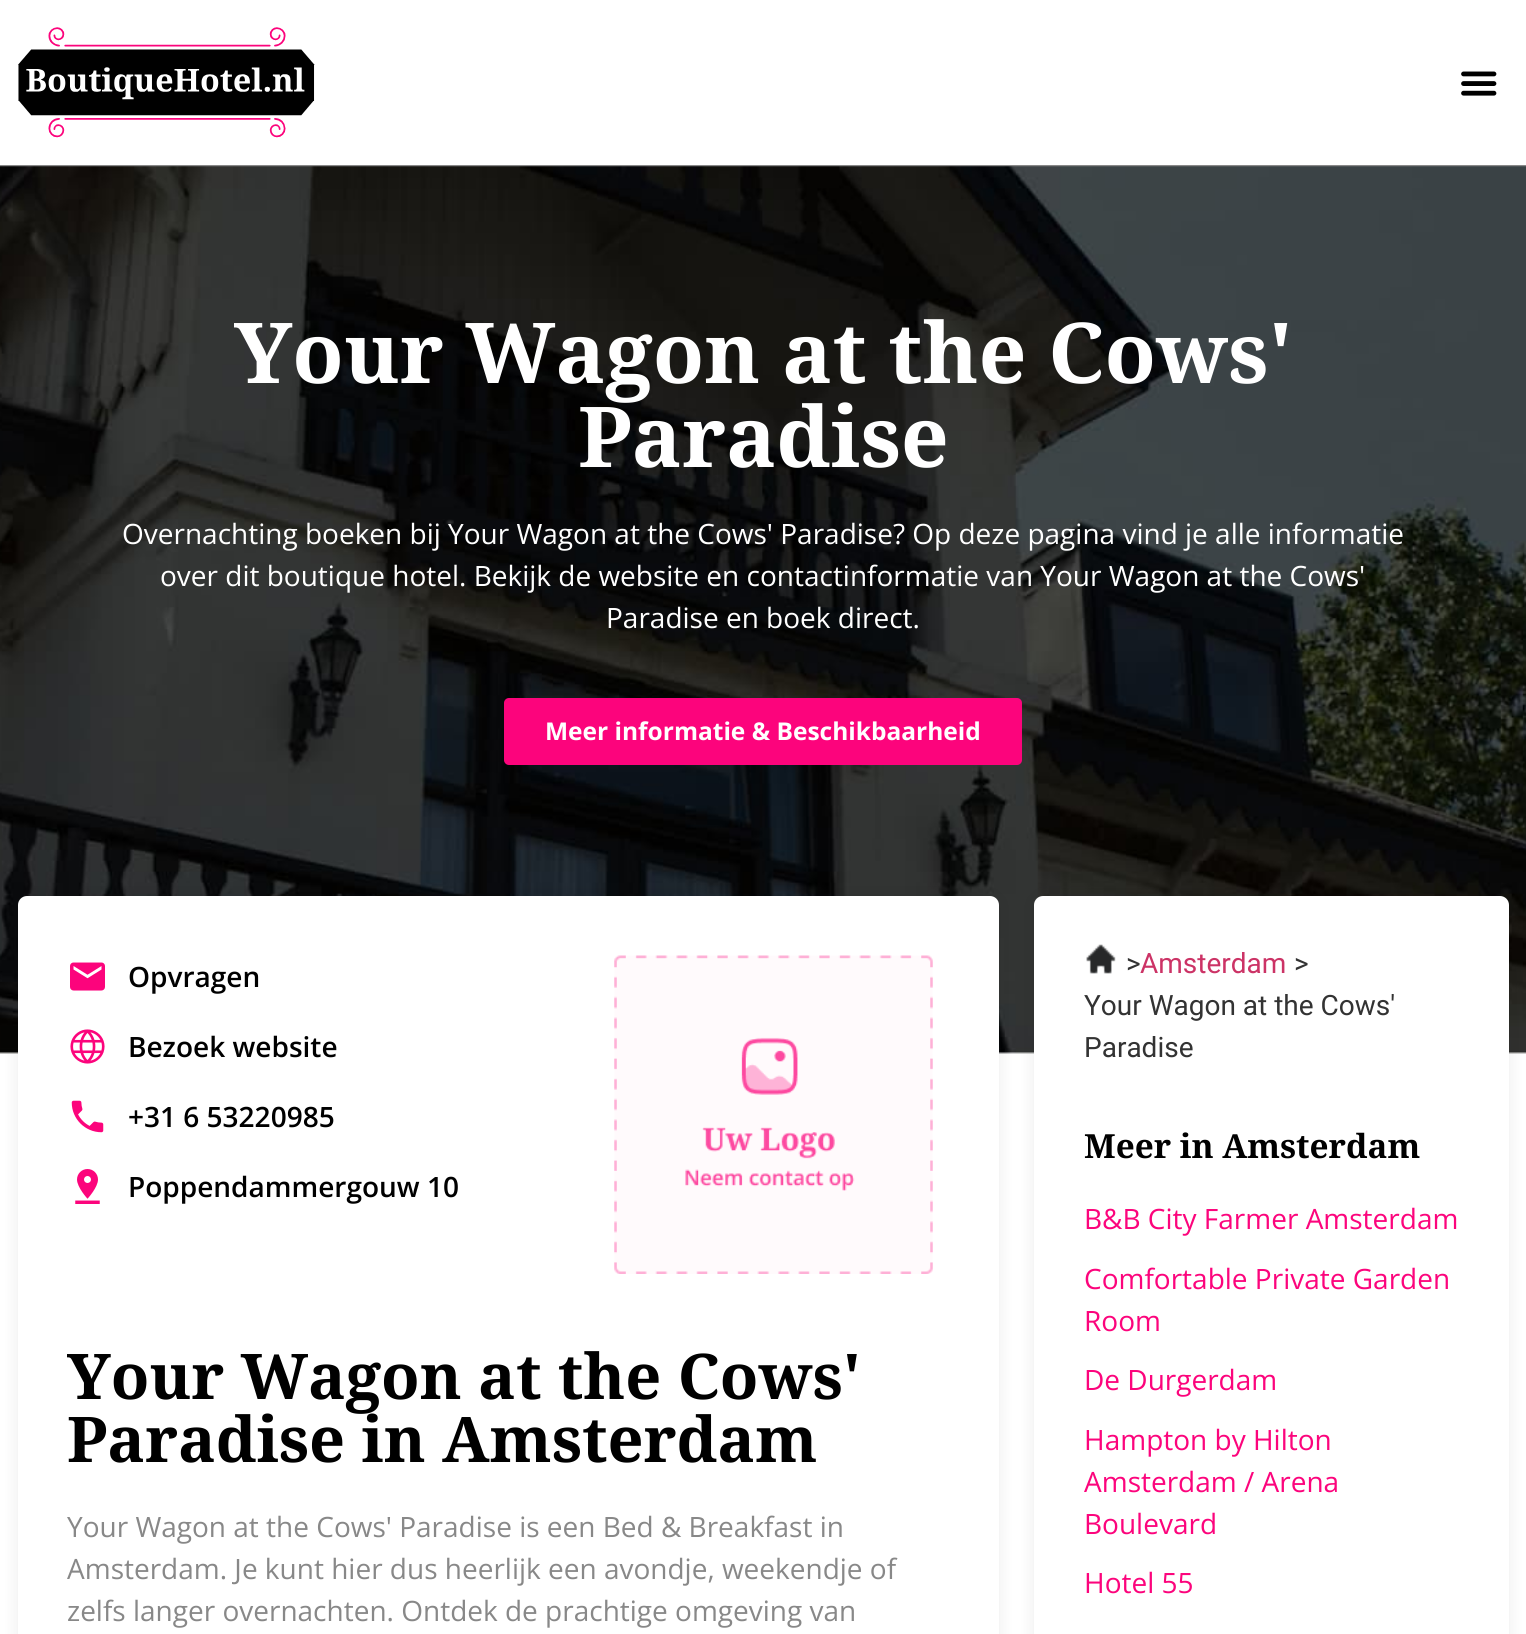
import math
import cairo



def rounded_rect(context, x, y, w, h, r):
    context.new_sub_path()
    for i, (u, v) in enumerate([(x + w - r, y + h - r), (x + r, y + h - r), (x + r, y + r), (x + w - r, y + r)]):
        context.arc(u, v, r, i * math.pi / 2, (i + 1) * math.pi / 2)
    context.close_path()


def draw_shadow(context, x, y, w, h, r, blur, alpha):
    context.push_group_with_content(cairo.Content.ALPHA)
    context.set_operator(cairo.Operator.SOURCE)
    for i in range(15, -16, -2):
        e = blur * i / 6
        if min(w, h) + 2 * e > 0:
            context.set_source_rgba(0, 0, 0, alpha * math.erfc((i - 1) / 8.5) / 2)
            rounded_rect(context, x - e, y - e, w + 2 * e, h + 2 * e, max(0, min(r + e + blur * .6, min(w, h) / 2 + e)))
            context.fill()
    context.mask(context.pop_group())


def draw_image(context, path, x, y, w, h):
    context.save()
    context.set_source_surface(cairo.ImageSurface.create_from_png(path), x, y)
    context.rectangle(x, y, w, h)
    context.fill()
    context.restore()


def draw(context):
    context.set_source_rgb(1, 1, 1)
    context.paint()
    context.set_source_rgb(136 / 255, 136 / 255, 136 / 255)
    context.rectangle(0, 165, 1526, 2)
    context.fill()
    draw_image(context, "images/1.png", 18, 27, 297, 111)
    draw_image(context, "images/2.png", 1461, 71, 36, 25)
    draw_image(context, "images/3.png", 0, 166, 1526, 888)
    context.set_source_rgb(252 / 255, 4 / 255, 124 / 255)
    rounded_rect(context, 504, 698, 518, 67, 5)
    context.fill()
    context.set_source_rgb(0, 0, 0)
    draw_shadow(context, 18, 896, 981, 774, 9, 9, 0.08)
    context.set_source_rgb(1, 1, 1)
    rounded_rect(context, 18, 896, 981, 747, 9)
    context.fill()
    draw_image(context, "images/4.png", 70, 962, 35, 29)
    draw_image(context, "images/5.png", 70, 1029, 35, 35)
    draw_image(context, "images/6.png", 71, 1100, 33, 33)
    draw_image(context, "images/7.png", 75, 1169, 25, 35)
    draw_image(context, "images/8.png", 614, 955, 319, 319)
    context.set_source_rgb(0, 0, 0)
    draw_shadow(context, 1034, 896, 475, 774, 9, 9, 0.08)
    context.set_source_rgb(1, 1, 1)
    rounded_rect(context, 1034, 896, 475, 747, 9)
    context.fill()
    draw_image(context, "images/9.png", 1086, 944, 30, 30)
    context.select_font_face("Noto Serif", cairo.FontSlant.NORMAL, cairo.FontWeight.BOLD)
    context.set_font_size(84)
    context.move_to(234, 383)
    context.show_text("Your Wagon at the Cows'")
    context.move_to(578, 467)
    context.show_text("Paradise")
    context.select_font_face("Open Sans")
    context.set_font_size(28)
    context.move_to(122, 544)
    context.show_text("Overnachting boeken bij Your Wagon at the Cows' Paradise? Op deze pagina vind je alle informatie")
    context.move_to(160, 586)
    context.show_text("over dit boutique hotel. Bekijk de website en contactinformatie van Your Wagon at the Cows'")
    context.move_to(606, 628)
    context.show_text("Paradise en boek direct.")
    context.select_font_face("Open Sans", cairo.FontSlant.NORMAL, cairo.FontWeight.BOLD)
    context.set_font_size(24.5)
    context.move_to(545, 740)
    context.show_text("Meer informatie & Beschikbaarheid")
    context.select_font_face("Open Sans SemiBold")
    context.set_font_size(28)
    context.set_source_rgb(0, 0, 0)
    context.move_to(128, 987)
    context.show_text("Opvragen")
    context.move_to(128, 1057)
    context.show_text("Bezoek website")
    context.move_to(128, 1127)
    context.show_text("+31 6 53220985")
    context.move_to(128, 1197)
    context.show_text("Poppendammergouw 10")
    context.select_font_face("Noto Serif", cairo.FontSlant.NORMAL, cairo.FontWeight.BOLD)
    context.set_font_size(63)
    context.move_to(67, 1399)
    context.show_text("Your Wagon at the Cows'")
    context.move_to(67, 1462)
    context.show_text("Paradise in Amsterdam")
    context.select_font_face("Open Sans")
    context.set_font_size(28)
    context.set_source_rgb(136 / 255, 136 / 255, 136 / 255)
    context.move_to(67, 1537)
    context.show_text("Your Wagon at the Cows' Paradise is een Bed & Breakfast in")
    context.move_to(67, 1579)
    context.show_text("Amsterdam. Je kunt hier dus heerlijk een avondje, weekendje of")
    context.move_to(67, 1621)
    context.show_text("zelfs langer overnachten. Ontdek de prachtige omgeving van")
    context.select_font_face("Roboto")
    context.set_source_rgb(51 / 255, 51 / 255, 51 / 255)
    context.move_to(1126, 973)
    context.show_text(">")
    context.set_source_rgb(204 / 255, 51 / 255, 102 / 255)
    context.move_to(1140, 973)
    context.show_text("Amsterdam")
    context.set_source_rgb(51 / 255, 51 / 255, 51 / 255)
    context.move_to(1294, 973)
    context.show_text(">")
    context.move_to(1084, 1015)
    context.show_text("Your Wagon at the Cows'")
    context.move_to(1084, 1057)
    context.show_text("Paradise")
    context.select_font_face("Noto Serif", cairo.FontSlant.NORMAL, cairo.FontWeight.BOLD)
    context.set_font_size(33.25)
    context.set_source_rgb(0, 0, 0)
    context.move_to(1084, 1158)
    context.show_text("Meer in Amsterdam")
    context.select_font_face("Open Sans")
    context.set_font_size(28)
    context.set_source_rgb(252 / 255, 4 / 255, 124 / 255)
    context.move_to(1084, 1229)
    context.show_text("B&B City Farmer Amsterdam")
    context.move_to(1084, 1289)
    context.show_text("Comfortable Private Garden")
    context.move_to(1084, 1331)
    context.show_text("Room")
    context.move_to(1084, 1390)
    context.show_text("De Durgerdam")
    context.move_to(1084, 1450)
    context.show_text("Hampton by Hilton")
    context.move_to(1084, 1492)
    context.show_text("Amsterdam / Arena")
    context.move_to(1084, 1534)
    context.show_text("Boulevard")
    context.move_to(1084, 1593)
    context.show_text("Hotel 55")


surface = cairo.ImageSurface(cairo.Format.RGB24, 1526, 1634)
context = cairo.Context(surface)
options = cairo.FontOptions()
options.set_hint_metrics(cairo.HintMetrics.OFF)
options.set_hint_style(cairo.HintStyle.NONE)
context.set_font_options(options)
context.set_miter_limit(4)
draw(context)
surface.write_to_png("out.png")
